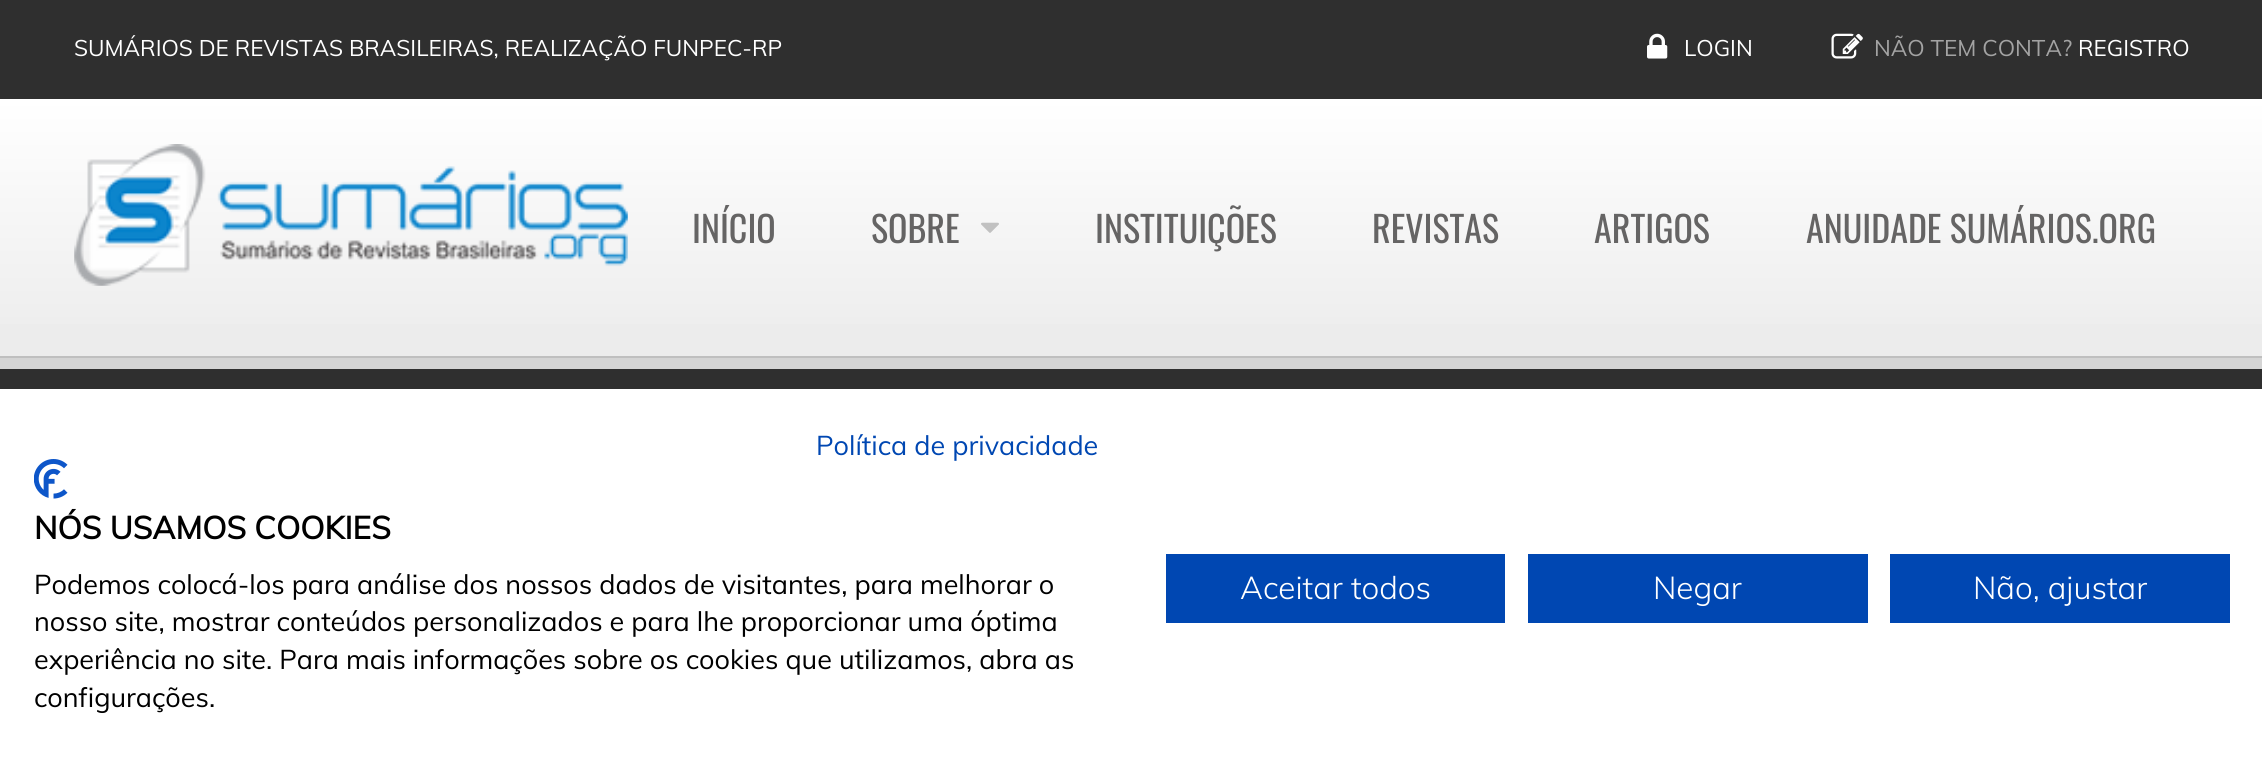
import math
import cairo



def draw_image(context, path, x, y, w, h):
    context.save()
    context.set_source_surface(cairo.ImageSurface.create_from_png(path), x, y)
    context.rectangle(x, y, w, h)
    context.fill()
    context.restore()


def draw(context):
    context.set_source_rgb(47 / 255, 47 / 255, 47 / 255)
    context.paint()
    draw_image(context, "images/1.png", 1647, 33, 21, 26)
    draw_image(context, "images/2.png", 1831, 33, 32, 26)
    context.set_source_rgb(236 / 255, 236 / 255, 236 / 255)
    context.rectangle(0, 324, 2262, 32)
    context.fill()
    gradient = cairo.LinearGradient(1132, 99, 1132, 324)
    gradient.add_color_stop_rgba(0, 1, 1, 1, 1)
    gradient.add_color_stop_rgba(1, 238 / 255, 238 / 255, 238 / 255, 1)
    context.set_source(gradient)
    context.rectangle(0, 99, 2262, 225)
    context.fill()
    draw_image(context, "images/3.png", 74, 144, 554, 142)
    draw_image(context, "images/4.png", 981, 222, 18, 11)
    context.set_source_rgb(212 / 255, 212 / 255, 212 / 255)
    context.rectangle(0, 358, 2262, 11)
    context.fill()
    context.set_source_rgb(191 / 255, 191 / 255, 191 / 255)
    context.rectangle(0, 356, 2262, 2)
    context.fill()
    context.set_source_rgb(1, 1, 1)
    context.rectangle(0, 389, 2262, 389)
    context.fill()
    draw_image(context, "images/5.png", 34, 459, 34, 40)
    context.set_source_rgb(0, 71 / 255, 178 / 255)
    context.rectangle(1166, 554, 339, 69)
    context.fill()
    context.rectangle(1528, 554, 340, 69)
    context.fill()
    context.rectangle(1890, 554, 340, 69)
    context.fill()
    context.select_font_face("Muli")
    context.set_font_size(22.5)
    context.set_source_rgb(1, 1, 1)
    context.move_to(74, 56)
    context.show_text("SUMÁRIOS DE REVISTAS BRASILEIRAS, REALIZAÇÃO FUNPEC-RP")
    context.move_to(1684, 56)
    context.show_text("LOGIN")
    context.set_source_rgb(163 / 255, 163 / 255, 163 / 255)
    context.move_to(1874, 56)
    context.show_text("NÃO TEM CONTA?")
    context.set_source_rgb(1, 1, 1)
    context.move_to(2078, 56)
    context.show_text("REGISTRO")
    context.select_font_face("Oswald")
    context.set_font_size(36)
    context.set_source_rgb(101 / 255, 100 / 255, 100 / 255)
    context.move_to(692, 243)
    context.show_text("INÍCIO")
    context.move_to(871, 243)
    context.show_text("SOBRE")
    context.move_to(1095, 243)
    context.show_text("INSTITUIÇÕES")
    context.move_to(1372, 243)
    context.show_text("REVISTAS")
    context.move_to(1594, 243)
    context.show_text("ARTIGOS")
    context.move_to(1806, 243)
    context.show_text("ANUIDADE SUMÁRIOS.ORG")
    context.select_font_face("Muli")
    context.set_font_size(27)
    context.set_source_rgb(0, 71 / 255, 178 / 255)
    context.move_to(816, 455)
    context.show_text("Política de privacidade")
    context.select_font_face("Muli", cairo.FontSlant.NORMAL, cairo.FontWeight.BOLD)
    context.set_font_size(31.5)
    context.set_source_rgb(0, 0, 0)
    context.move_to(34, 539)
    context.show_text("NÓS USAMOS COOKIES")
    context.select_font_face("Muli")
    context.set_font_size(27)
    context.move_to(34, 594)
    context.show_text("Podemos colocá-los para análise dos nossos dados de visitantes, para melhorar o")
    context.move_to(34, 631)
    context.show_text("nosso site, mostrar conteúdos personalizados e para lhe proporcionar uma óptima")
    context.move_to(34, 669)
    context.show_text("experiência no site. Para mais informações sobre os cookies que utilizamos, abra as")
    context.move_to(34, 707)
    context.show_text("configurações.")
    context.select_font_face("Muli Light")
    context.set_font_size(31.5)
    context.set_source_rgb(1, 1, 1)
    context.move_to(1240, 599)
    context.show_text("Aceitar todos")
    context.move_to(1653, 599)
    context.show_text("Negar")
    context.move_to(1973, 599)
    context.show_text("Não, ajustar")


surface = cairo.ImageSurface(cairo.Format.RGB24, 2262, 778)
context = cairo.Context(surface)
options = cairo.FontOptions()
options.set_hint_metrics(cairo.HintMetrics.OFF)
options.set_hint_style(cairo.HintStyle.NONE)
context.set_font_options(options)
context.set_miter_limit(4)
draw(context)
surface.write_to_png("out.png")
